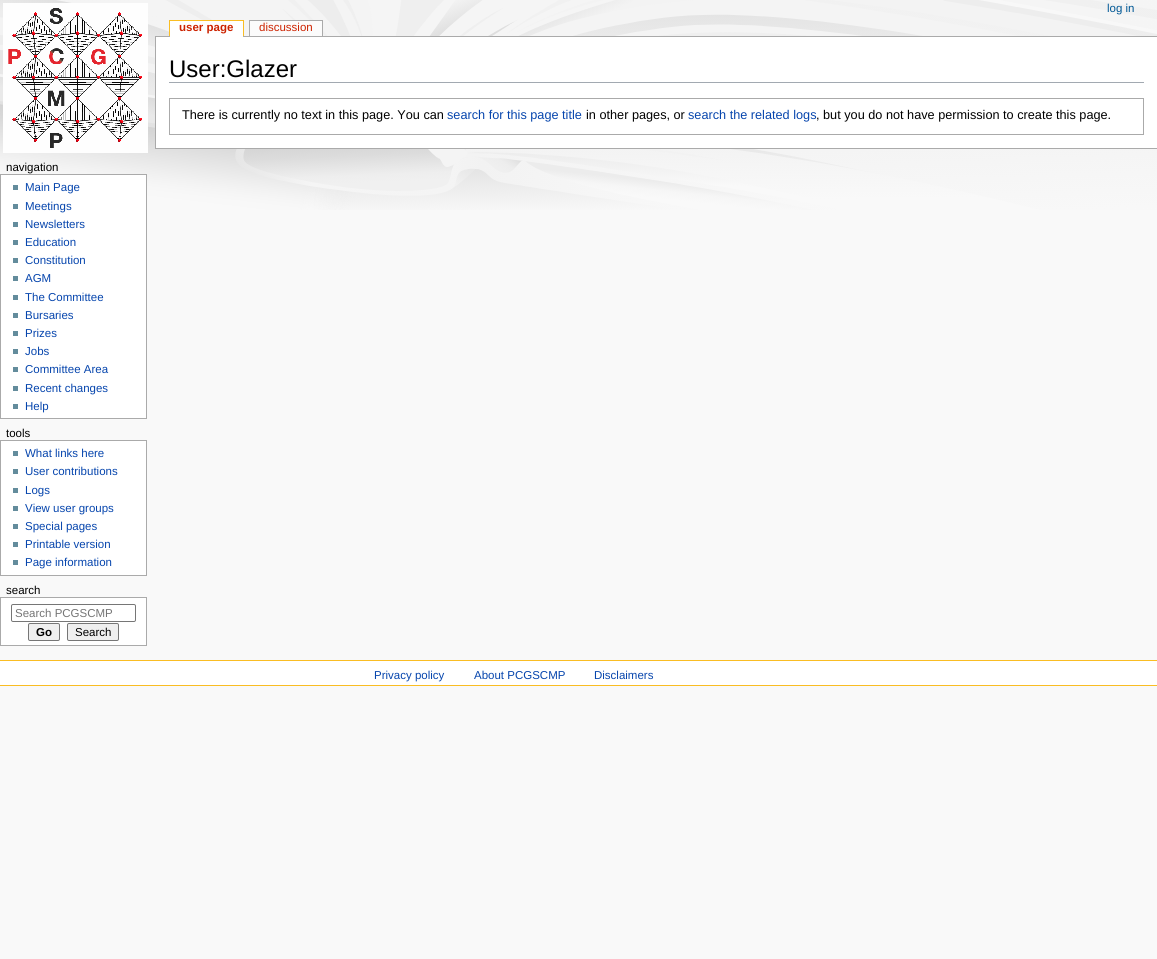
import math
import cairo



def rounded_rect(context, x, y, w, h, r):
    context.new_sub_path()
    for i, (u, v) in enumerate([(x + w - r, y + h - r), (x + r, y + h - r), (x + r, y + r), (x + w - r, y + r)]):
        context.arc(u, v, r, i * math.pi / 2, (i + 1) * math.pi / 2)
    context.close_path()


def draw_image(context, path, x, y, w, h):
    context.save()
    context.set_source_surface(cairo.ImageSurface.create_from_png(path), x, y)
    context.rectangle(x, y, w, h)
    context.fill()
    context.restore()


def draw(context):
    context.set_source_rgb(249 / 255, 249 / 255, 249 / 255)
    context.paint()
    draw_image(context, "images/1.png", 0, 0, 1157, 210)
    draw_image(context, "images/2.png", 3, 3, 145, 150)
    context.set_source_rgb(250 / 255, 189 / 255, 35 / 255)
    context.rectangle(169, 20, 75, 1)
    context.fill()
    context.rectangle(243, 20, 1, 16)
    context.fill()
    context.rectangle(169, 20, 1, 16)
    context.fill()
    context.set_source_rgb(170 / 255, 170 / 255, 170 / 255)
    context.rectangle(155, 36, 1002, 1)
    context.fill()
    context.set_source_rgb(1, 1, 1)
    context.rectangle(170, 21, 73, 16)
    context.fill()
    context.set_source_rgb(170 / 255, 170 / 255, 170 / 255)
    context.rectangle(249, 20, 74, 1)
    context.fill()
    context.rectangle(322, 20, 1, 16)
    context.fill()
    context.rectangle(249, 20, 1, 16)
    context.fill()
    context.set_source_rgb(251 / 255, 251 / 255, 251 / 255)
    context.rectangle(250, 21, 72, 15)
    context.fill()
    context.set_source_rgb(1, 1, 1)
    context.rectangle(0.5, 174.5, 146, 244)
    context.fill_preserve()
    context.set_source_rgb(170 / 255, 170 / 255, 170 / 255)
    context.set_line_width(1)
    context.stroke()
    context.set_source_rgb(99 / 255, 140 / 255, 156 / 255)
    context.rectangle(13, 185, 5, 5)
    context.fill()
    context.rectangle(13, 204, 5, 5)
    context.fill()
    context.rectangle(13, 222, 5, 5)
    context.fill()
    context.rectangle(13, 240, 5, 5)
    context.fill()
    context.rectangle(13, 258, 5, 5)
    context.fill()
    context.rectangle(13, 276, 5, 5)
    context.fill()
    context.rectangle(13, 295, 5, 5)
    context.fill()
    context.rectangle(13, 313, 5, 5)
    context.fill()
    context.rectangle(13, 331, 5, 5)
    context.fill()
    context.rectangle(13, 349, 5, 5)
    context.fill()
    context.rectangle(13, 367, 5, 5)
    context.fill()
    context.rectangle(13, 386, 5, 5)
    context.fill()
    context.rectangle(13, 404, 5, 5)
    context.fill()
    context.set_source_rgb(1, 1, 1)
    context.rectangle(0.5, 440.5, 146, 135)
    context.fill_preserve()
    context.set_source_rgb(170 / 255, 170 / 255, 170 / 255)
    context.stroke()
    context.set_source_rgb(99 / 255, 140 / 255, 156 / 255)
    context.rectangle(13, 451, 5, 5)
    context.fill()
    context.rectangle(13, 469, 5, 5)
    context.fill()
    context.rectangle(13, 488, 5, 5)
    context.fill()
    context.rectangle(13, 506, 5, 5)
    context.fill()
    context.rectangle(13, 524, 5, 5)
    context.fill()
    context.rectangle(13, 542, 5, 5)
    context.fill()
    context.rectangle(13, 560, 5, 5)
    context.fill()
    context.set_source_rgb(1, 1, 1)
    context.rectangle(0.5, 597.5, 146, 48)
    context.fill_preserve()
    context.set_source_rgb(170 / 255, 170 / 255, 170 / 255)
    context.stroke()
    rounded_rect(context, 11.5, 604.5, 124, 17, 1.5)
    context.set_source_rgb(118 / 255, 118 / 255, 118 / 255)
    context.stroke()
    context.set_source_rgb(239 / 255, 239 / 255, 239 / 255)
    rounded_rect(context, 28.5, 623.5, 31, 17, 1.5)
    context.fill_preserve()
    context.set_source_rgb(118 / 255, 118 / 255, 118 / 255)
    context.stroke()
    context.set_source_rgb(239 / 255, 239 / 255, 239 / 255)
    rounded_rect(context, 67.5, 623.5, 51, 17, 1.5)
    context.fill_preserve()
    context.set_source_rgb(118 / 255, 118 / 255, 118 / 255)
    context.stroke()
    context.set_source_rgb(1, 1, 1)
    context.rectangle(156, 37, 1001, 111)
    context.fill()
    context.set_source_rgb(170 / 255, 170 / 255, 170 / 255)
    context.rectangle(155, 148, 1002, 1)
    context.fill()
    context.rectangle(155, 36, 1, 113)
    context.fill()
    context.set_source_rgb(162 / 255, 169 / 255, 177 / 255)
    context.rectangle(169, 82, 975, 1)
    context.fill()
    context.rectangle(169.5, 98.5, 974, 36)
    context.set_source_rgb(170 / 255, 170 / 255, 170 / 255)
    context.stroke()
    context.set_source_rgb(1, 1, 1)
    context.rectangle(0, 661, 1157, 24)
    context.fill()
    context.set_source_rgb(250 / 255, 189 / 255, 35 / 255)
    context.rectangle(0, 660, 1157, 1)
    context.fill()
    context.rectangle(0, 685, 1157, 1)
    context.fill()
    context.select_font_face("Liberation Sans")
    context.set_font_size(11.5)
    context.set_source_rgb(0, 88 / 255, 150 / 255)
    context.move_to(1107, 12)
    context.show_text("log in")
    context.select_font_face("Liberation Sans", cairo.FontSlant.NORMAL, cairo.FontWeight.BOLD)
    context.set_source_rgb(204 / 255, 34 / 255, 0)
    context.move_to(179, 31)
    context.show_text("user page")
    context.select_font_face("Liberation Sans")
    context.move_to(259, 31)
    context.show_text("discussion")
    context.set_source_rgb(0, 0, 0)
    context.move_to(6, 171)
    context.show_text("navigation")
    context.set_source_rgb(6 / 255, 69 / 255, 173 / 255)
    context.move_to(25, 191)
    context.show_text("Main Page")
    context.move_to(25, 210)
    context.show_text("Meetings")
    context.move_to(25, 228)
    context.show_text("Newsletters")
    context.move_to(25, 246)
    context.show_text("Education")
    context.move_to(25, 264)
    context.show_text("Constitution")
    context.move_to(25, 282)
    context.show_text("AGM")
    context.move_to(25, 301)
    context.show_text("The Committee")
    context.move_to(25, 319)
    context.show_text("Bursaries")
    context.move_to(25, 337)
    context.show_text("Prizes")
    context.move_to(25, 355)
    context.show_text("Jobs")
    context.move_to(25, 373)
    context.show_text("Committee Area")
    context.move_to(25, 392)
    context.show_text("Recent changes")
    context.move_to(25, 410)
    context.show_text("Help")
    context.set_source_rgb(0, 0, 0)
    context.move_to(6, 437)
    context.show_text("tools")
    context.set_source_rgb(6 / 255, 69 / 255, 173 / 255)
    context.move_to(25, 457)
    context.show_text("What links here")
    context.move_to(25, 475)
    context.show_text("User contributions")
    context.move_to(25, 494)
    context.show_text("Logs")
    context.move_to(25, 512)
    context.show_text("View user groups")
    context.move_to(25, 530)
    context.show_text("Special pages")
    context.move_to(25, 548)
    context.show_text("Printable version")
    context.move_to(25, 566)
    context.show_text("Page information")
    context.set_source_rgb(0, 0, 0)
    context.move_to(6, 594)
    context.show_text("search")
    context.set_source_rgb(117 / 255, 117 / 255, 117 / 255)
    context.move_to(15, 617)
    context.show_text("Search PCGSCMP")
    context.select_font_face("Liberation Sans", cairo.FontSlant.NORMAL, cairo.FontWeight.BOLD)
    context.set_source_rgb(0, 0, 0)
    context.move_to(36, 636)
    context.show_text("Go")
    context.select_font_face("Liberation Sans")
    context.move_to(75, 636)
    context.show_text("Search")
    context.set_font_size(24)
    context.move_to(169, 77)
    context.show_text("User:Glazer")
    context.set_font_size(12.7)
    context.move_to(182, 119)
    context.show_text("There is currently no text in this page. You can")
    context.set_source_rgb(6 / 255, 69 / 255, 173 / 255)
    context.move_to(447, 119)
    context.show_text("search for this page title")
    context.set_source_rgb(0, 0, 0)
    context.move_to(586, 119)
    context.show_text("in other pages, or")
    context.set_source_rgb(6 / 255, 69 / 255, 173 / 255)
    context.move_to(688, 119)
    context.show_text("search the related logs")
    context.set_source_rgb(0, 0, 0)
    context.move_to(816, 119)
    context.show_text(", but you do not have permission to create this page.")
    context.set_font_size(11.5)
    context.set_source_rgb(6 / 255, 69 / 255, 173 / 255)
    context.move_to(374, 679)
    context.show_text("Privacy policy")
    context.move_to(474, 679)
    context.show_text("About PCGSCMP")
    context.move_to(594, 679)
    context.show_text("Disclaimers")


surface = cairo.ImageSurface(cairo.Format.RGB24, 1157, 959)
context = cairo.Context(surface)
options = cairo.FontOptions()
options.set_hint_metrics(cairo.HintMetrics.OFF)
options.set_hint_style(cairo.HintStyle.NONE)
context.set_font_options(options)
context.set_miter_limit(4)
draw(context)
surface.write_to_png("out.png")
